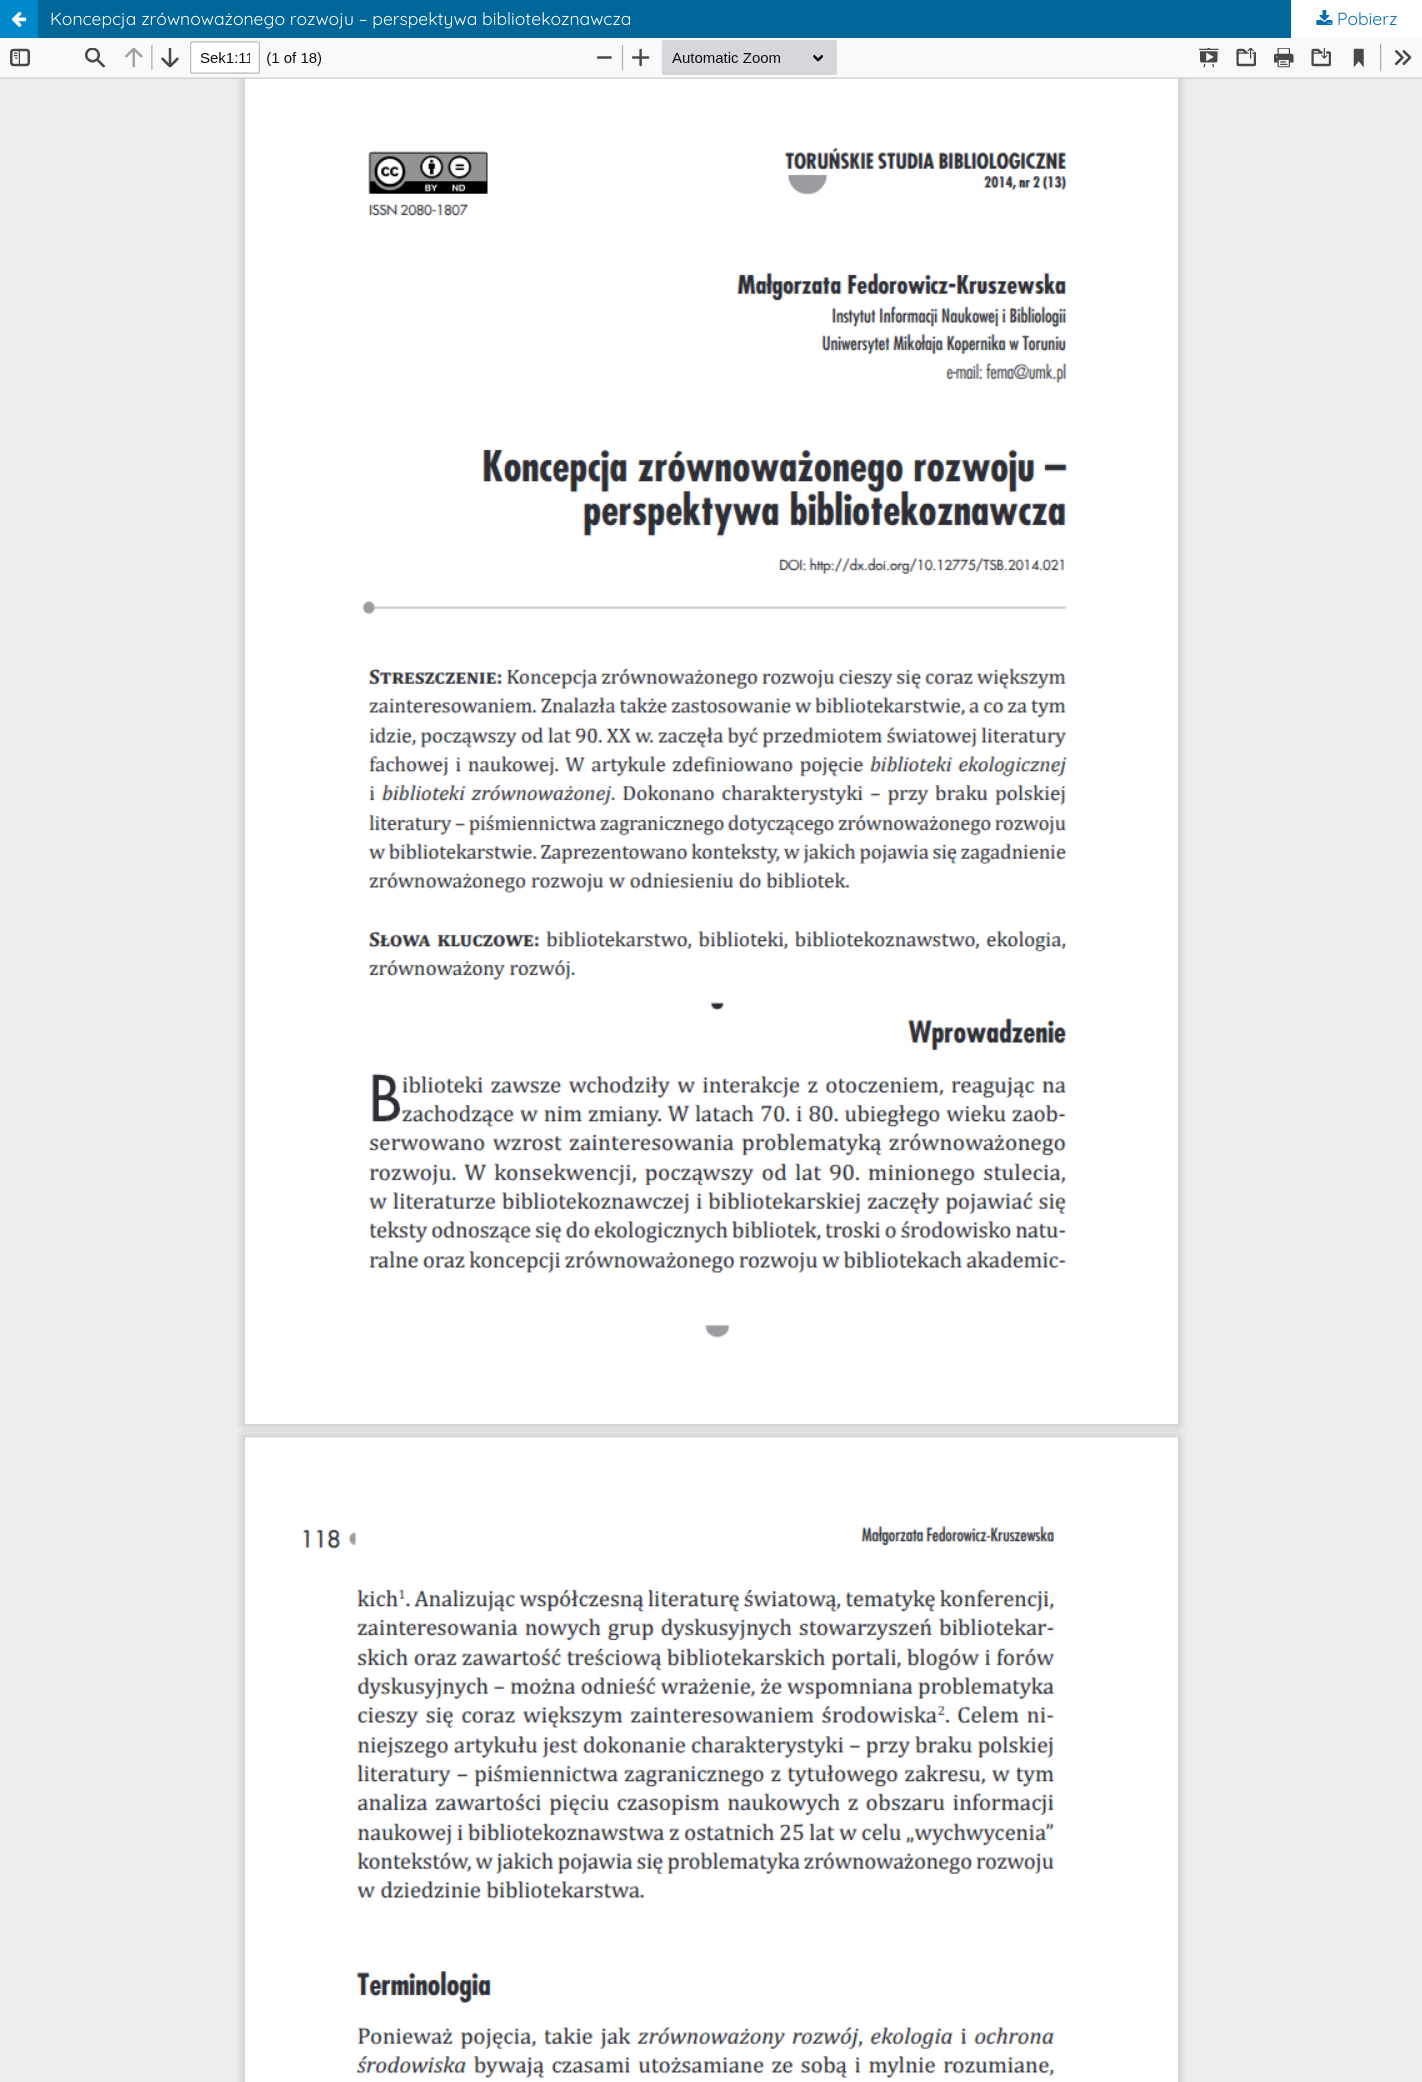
import math
import cairo



def draw_image(context, path, x, y, w, h):
    context.save()
    context.set_source_surface(cairo.ImageSurface.create_from_png(path), x, y)
    context.rectangle(x, y, w, h)
    context.fill()
    context.restore()


def draw(context):
    context.set_source_rgb(1, 1, 1)
    context.paint()
    context.set_source_rgb(0, 103 / 255, 152 / 255)
    context.rectangle(38, 0, 1253, 38)
    context.fill()
    context.set_source_rgb(0, 138 / 255, 203 / 255)
    context.rectangle(0, 0, 38, 38)
    context.fill()
    draw_image(context, "images/1.png", 11, 11, 16, 16)
    draw_image(context, "images/2.png", 1316, 10, 17, 15)
    draw_image(context, "images/3.png", 0, 38, 1422, 2044)
    context.select_font_face("Quicksand")
    context.set_font_size(17.5)
    context.set_source_rgb(1, 1, 1)
    context.move_to(50, 25)
    context.show_text("Koncepcja zrównoważonego rozwoju – perspektywa bibliotekoznawcza")
    context.set_source_rgb(9 / 255, 109 / 255, 171 / 255)
    context.move_to(1337, 25)
    context.show_text("Pobierz")


surface = cairo.ImageSurface(cairo.Format.RGB24, 1422, 2082)
context = cairo.Context(surface)
options = cairo.FontOptions()
options.set_hint_metrics(cairo.HintMetrics.OFF)
options.set_hint_style(cairo.HintStyle.NONE)
context.set_font_options(options)
context.set_miter_limit(4)
draw(context)
surface.write_to_png("out.png")
